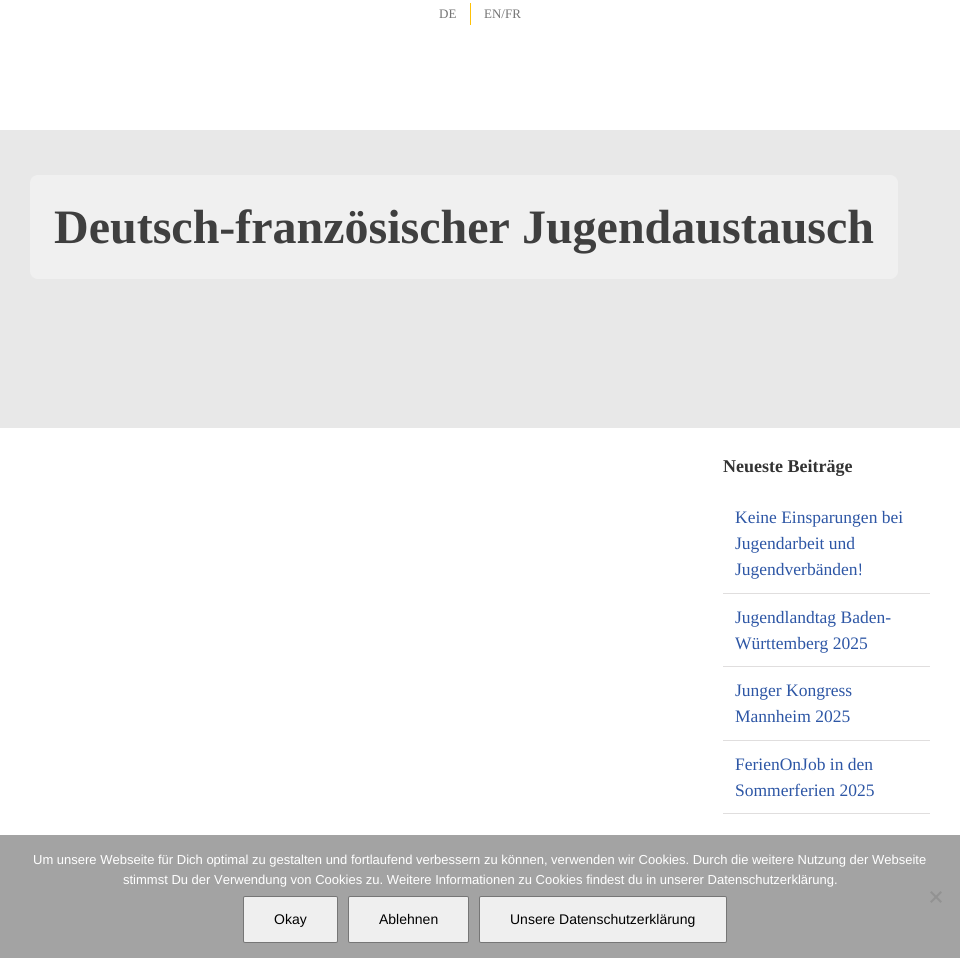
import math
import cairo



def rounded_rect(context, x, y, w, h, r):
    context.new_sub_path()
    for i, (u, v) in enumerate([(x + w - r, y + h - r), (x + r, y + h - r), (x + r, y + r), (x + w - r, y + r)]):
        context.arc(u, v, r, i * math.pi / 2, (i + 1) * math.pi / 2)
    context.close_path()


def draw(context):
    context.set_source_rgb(1, 1, 1)
    context.paint()
    context.set_source_rgb(1, 193 / 255, 7 / 255)
    context.rectangle(470, 3, 1, 22)
    context.fill()
    context.set_source_rgb(232 / 255, 232 / 255, 232 / 255)
    context.rectangle(0, 130, 960, 298)
    context.fill()
    context.set_source_rgb(240 / 255, 240 / 255, 240 / 255)
    rounded_rect(context, 30, 175, 868, 104, 8)
    context.fill()
    context.set_source_rgb(224 / 255, 222 / 255, 222 / 255)
    context.rectangle(723, 593, 207, 1)
    context.fill()
    context.rectangle(723, 666, 207, 1)
    context.fill()
    context.rectangle(723, 740, 207, 1)
    context.fill()
    context.rectangle(723, 813, 207, 1)
    context.fill()
    context.set_source_rgb(163 / 255, 163 / 255, 163 / 255)
    context.rectangle(0, 835, 960, 123)
    context.fill()
    context.set_source_rgb(146 / 255, 146 / 255, 146 / 255)
    context.new_path()
    context.move_to(940.5, 891)
    context.line_to(942, 892.5)
    context.line_to(931.5, 903)
    context.line_to(930, 901.5)
    context.close_path()
    context.fill()
    context.new_path()
    context.move_to(930, 892.5)
    context.line_to(931.5, 891)
    context.line_to(942, 901.5)
    context.line_to(940.5, 903)
    context.close_path()
    context.fill()
    context.set_source_rgb(239 / 255, 239 / 255, 239 / 255)
    rounded_rect(context, 243.5, 896.5, 94, 46, 1.5)
    context.fill_preserve()
    context.set_source_rgb(118 / 255, 118 / 255, 118 / 255)
    context.set_line_width(1)
    context.stroke()
    context.set_source_rgb(239 / 255, 239 / 255, 239 / 255)
    rounded_rect(context, 348.5, 896.5, 120, 46, 1.5)
    context.fill_preserve()
    context.set_source_rgb(118 / 255, 118 / 255, 118 / 255)
    context.stroke()
    context.set_source_rgb(239 / 255, 239 / 255, 239 / 255)
    rounded_rect(context, 479.5, 896.5, 247, 46, 1.5)
    context.fill_preserve()
    context.set_source_rgb(118 / 255, 118 / 255, 118 / 255)
    context.stroke()
    context.select_font_face("Liberation Serif")
    context.set_font_size(13)
    context.set_source_rgb(116 / 255, 116 / 255, 116 / 255)
    context.move_to(439, 18)
    context.show_text("DE")
    context.move_to(484, 18)
    context.show_text("EN/FR")
    context.select_font_face("Liberation Serif", cairo.FontSlant.NORMAL, cairo.FontWeight.BOLD)
    context.set_font_size(48)
    context.set_source_rgb(63 / 255, 63 / 255, 63 / 255)
    context.move_to(54, 243)
    context.show_text("Deutsch-französischer Jugendaustausch")
    context.set_font_size(18)
    context.set_source_rgb(51 / 255, 51 / 255, 51 / 255)
    context.move_to(723, 472)
    context.show_text("Neueste Beiträge")
    context.select_font_face("Liberation Serif")
    context.set_font_size(17.5)
    context.set_source_rgb(45 / 255, 86 / 255, 165 / 255)
    context.move_to(735, 523)
    context.show_text("Keine Einsparungen bei")
    context.move_to(735, 549)
    context.show_text("Jugendarbeit und")
    context.move_to(735, 575)
    context.show_text("Jugendverbänden!")
    context.move_to(735, 623)
    context.show_text("Jugendlandtag Baden-")
    context.move_to(735, 649)
    context.show_text("Württemberg 2025")
    context.move_to(735, 696)
    context.show_text("Junger Kongress")
    context.move_to(735, 722)
    context.show_text("Mannheim 2025")
    context.move_to(735, 770)
    context.show_text("FerienOnJob in den")
    context.move_to(735, 796)
    context.show_text("Sommerferien 2025")
    context.select_font_face("Liberation Sans")
    context.set_font_size(13)
    context.set_source_rgb(1, 1, 1)
    context.move_to(33, 864)
    context.show_text("Um unsere Webseite für Dich optimal zu gestalten und fortlaufend verbessern zu können, verwenden wir Cookies. Durch die weitere Nutzung der Webseite")
    context.move_to(123, 884)
    context.show_text("stimmst Du der Verwendung von Cookies zu. Weitere Informationen zu Cookies findest du in unserer Datenschutzerklärung.")
    context.set_font_size(14)
    context.set_source_rgb(0, 0, 0)
    context.move_to(274, 924)
    context.show_text("Okay")
    context.move_to(379, 924)
    context.show_text("Ablehnen")
    context.move_to(510, 924)
    context.show_text("Unsere Datenschutzerklärung")


surface = cairo.ImageSurface(cairo.Format.RGB24, 960, 958)
context = cairo.Context(surface)
options = cairo.FontOptions()
options.set_hint_metrics(cairo.HintMetrics.OFF)
options.set_hint_style(cairo.HintStyle.NONE)
context.set_font_options(options)
context.set_miter_limit(4)
draw(context)
surface.write_to_png("out.png")
